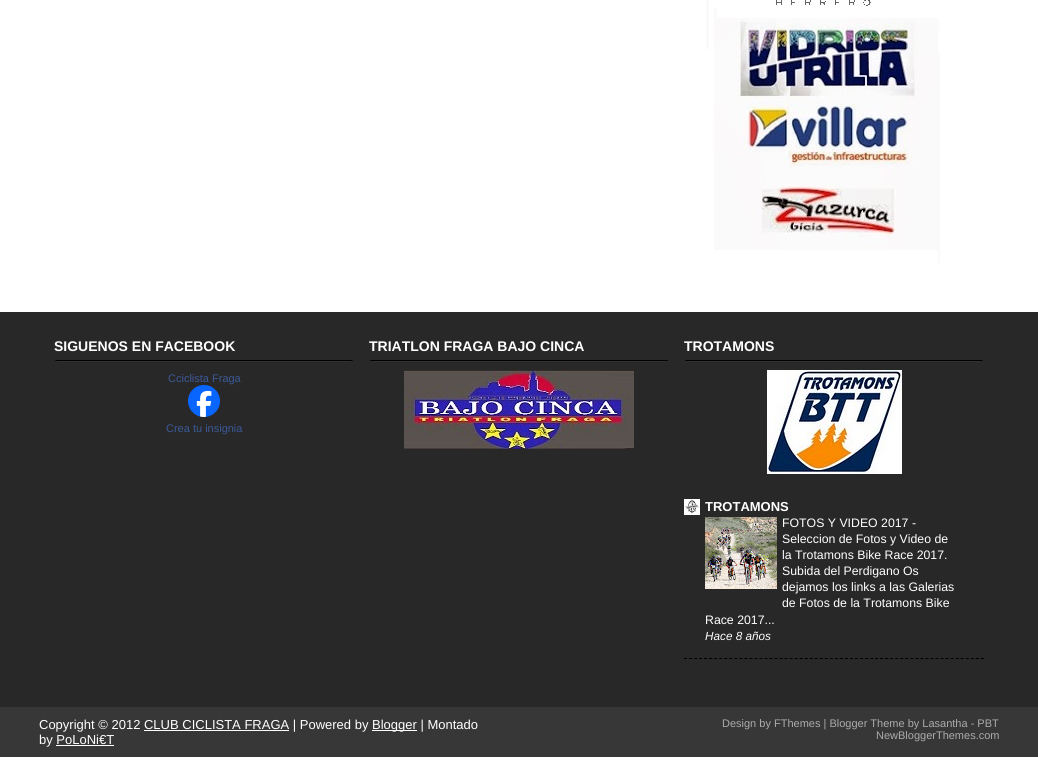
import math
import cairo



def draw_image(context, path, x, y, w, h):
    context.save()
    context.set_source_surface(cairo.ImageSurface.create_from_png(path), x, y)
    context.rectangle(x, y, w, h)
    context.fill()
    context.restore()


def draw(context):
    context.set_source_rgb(1, 1, 1)
    context.paint()
    draw_image(context, "images/1.png", 706, 0, 234, 264)
    context.set_source_rgb(40 / 255, 40 / 255, 40 / 255)
    context.rectangle(0, 312, 1038, 395)
    context.fill()
    draw_image(context, "images/2.png", 55, 360, 298, 2)
    draw_image(context, "images/3.png", 188, 385, 32, 32)
    draw_image(context, "images/2.png", 370, 360, 298, 2)
    draw_image(context, "images/4.png", 404, 370, 230, 79)
    draw_image(context, "images/2.png", 685, 360, 298, 2)
    draw_image(context, "images/5.png", 767, 370, 135, 104)
    context.new_path()
    context.move_to(684, 658.5)
    context.line_to(984, 658.5)
    context.set_source_rgb(0, 0, 0)
    context.set_line_width(1)
    context.set_dash([3, 2.03])
    context.stroke()
    draw_image(context, "images/6.png", 684, 499, 16, 16)
    draw_image(context, "images/7.png", 705, 517, 72, 72)
    context.set_source_rgb(55 / 255, 55 / 255, 55 / 255)
    context.rectangle(0, 707, 1038, 50)
    context.fill()
    context.set_source_rgb(1, 1, 1)
    context.rectangle(372, 730, 45, 1)
    context.fill()
    context.rectangle(144, 730, 145, 1)
    context.fill()
    context.rectangle(56, 745, 58, 1)
    context.fill()
    context.select_font_face("Liberation Sans", cairo.FontSlant.NORMAL, cairo.FontWeight.BOLD)
    context.set_font_size(14)
    context.move_to(54, 351)
    context.show_text("SIGUENOS EN FACEBOOK")
    context.select_font_face("Liberation Sans")
    context.set_font_size(11)
    context.set_source_rgb(59 / 255, 89 / 255, 152 / 255)
    context.move_to(168, 382)
    context.show_text("Cciclista Fraga")
    context.move_to(166, 432)
    context.show_text("Crea tu insignia")
    context.select_font_face("Liberation Sans", cairo.FontSlant.NORMAL, cairo.FontWeight.BOLD)
    context.set_font_size(14)
    context.set_source_rgb(1, 1, 1)
    context.move_to(369, 351)
    context.show_text("TRIATLON FRAGA BAJO CINCA")
    context.move_to(684, 351)
    context.show_text("TROTAMONS")
    context.set_font_size(13)
    context.move_to(705, 511)
    context.show_text("TROTAMONS")
    context.select_font_face("Liberation Sans")
    context.set_font_size(12.3)
    context.move_to(782, 527)
    context.show_text("FOTOS Y VIDEO 2017 -")
    context.move_to(782, 543)
    context.show_text("Seleccion de Fotos y Video de")
    context.move_to(782, 559)
    context.show_text("la Trotamons Bike Race 2017.")
    context.move_to(782, 575)
    context.show_text("Subida del Perdigano Os")
    context.move_to(782, 591)
    context.show_text("dejamos los links a las Galerias")
    context.move_to(782, 607)
    context.show_text("de Fotos de la Trotamons Bike")
    context.move_to(705, 624)
    context.show_text("Race 2017...")
    context.select_font_face("Liberation Sans", cairo.FontSlant.ITALIC)
    context.set_font_size(11.75)
    context.move_to(705, 640)
    context.show_text("Hace 8 años")
    context.select_font_face("Liberation Sans")
    context.set_font_size(13)
    context.move_to(39, 729)
    context.show_text("Copyright © 2012 CLUB CICLISTA FRAGA | Powered by")
    context.move_to(372, 729)
    context.show_text("Blogger | Montado")
    context.move_to(39, 744)
    context.show_text("by PoLoNi€T")
    context.set_font_size(11)
    context.set_source_rgb(171 / 255, 171 / 255, 171 / 255)
    context.move_to(722, 727)
    context.show_text("Design by FThemes | Blogger Theme by Lasantha - PBT")
    context.move_to(876, 739)
    context.show_text("NewBloggerThemes.com")


surface = cairo.ImageSurface(cairo.Format.RGB24, 1038, 772)
context = cairo.Context(surface)
options = cairo.FontOptions()
options.set_hint_metrics(cairo.HintMetrics.OFF)
options.set_hint_style(cairo.HintStyle.NONE)
context.set_font_options(options)
context.set_miter_limit(4)
draw(context)
surface.write_to_png("out.png")
